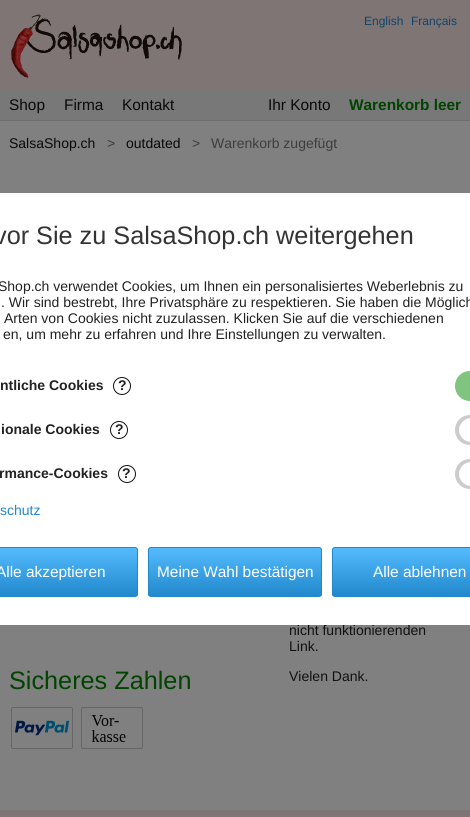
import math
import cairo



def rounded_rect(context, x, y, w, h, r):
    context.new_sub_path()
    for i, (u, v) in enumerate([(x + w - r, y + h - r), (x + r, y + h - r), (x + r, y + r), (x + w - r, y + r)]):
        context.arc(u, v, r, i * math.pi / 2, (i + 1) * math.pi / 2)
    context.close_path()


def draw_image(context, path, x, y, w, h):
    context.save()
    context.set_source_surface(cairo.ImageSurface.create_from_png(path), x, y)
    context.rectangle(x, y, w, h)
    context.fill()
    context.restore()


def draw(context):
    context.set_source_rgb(128 / 255, 117 / 255, 117 / 255)
    context.paint()
    draw_image(context, "images/1.png", 11, 14, 171, 64)
    context.set_source_rgb(120 / 255, 120 / 255, 120 / 255)
    context.rectangle(0, 90, 470, 30)
    context.fill()
    context.set_source_rgb(111 / 255, 111 / 255, 111 / 255)
    context.rectangle(0, 120, 470, 1)
    context.fill()
    context.set_source_rgb(128 / 255, 128 / 255, 128 / 255)
    context.rectangle(0, 121, 470, 689)
    context.fill()
    rounded_rect(context, 11.5, 707.5, 61, 41, 1.5)
    context.set_source_rgb(102 / 255, 102 / 255, 102 / 255)
    context.set_line_width(1)
    context.stroke()
    rounded_rect(context, 81.5, 707.5, 61, 41, 1.5)
    context.stroke()
    draw_image(context, "images/2.png", 15, 720, 54, 16)
    draw_image(context, "images/3.png", 91, 715, 35, 27)
    context.select_font_face("Liberation Sans")
    context.set_font_size(12)
    context.set_source_rgb(17 / 255, 68 / 255, 102 / 255)
    context.move_to(364, 25)
    context.show_text("English")
    context.move_to(411, 25)
    context.show_text("Français")
    context.set_font_size(15.4)
    context.set_source_rgb(9 / 255, 9 / 255, 9 / 255)
    context.move_to(9, 110)
    context.show_text("Shop")
    context.move_to(64, 110)
    context.show_text("Firma")
    context.move_to(122, 110)
    context.show_text("Kontakt")
    context.move_to(268, 110)
    context.show_text("Ihr Konto")
    context.select_font_face("Liberation Sans", cairo.FontSlant.NORMAL, cairo.FontWeight.BOLD)
    context.set_source_rgb(0, 68 / 255, 0)
    context.move_to(349, 110)
    context.show_text("Warenkorb leer")
    context.select_font_face("Liberation Sans")
    context.set_font_size(14)
    context.set_source_rgb(9 / 255, 9 / 255, 9 / 255)
    context.move_to(9, 148)
    context.show_text("SalsaShop.ch")
    context.set_source_rgb(61 / 255, 61 / 255, 61 / 255)
    context.move_to(107, 148)
    context.show_text(">")
    context.set_source_rgb(9 / 255, 9 / 255, 9 / 255)
    context.move_to(126, 148)
    context.show_text("outdated")
    context.set_source_rgb(61 / 255, 61 / 255, 61 / 255)
    context.move_to(192, 148)
    context.show_text(">")
    context.move_to(211, 148)
    context.show_text("Warenkorb zugefügt")
    context.set_font_size(25.25)
    context.set_source_rgb(0, 68 / 255, 0)
    context.move_to(9, 689)
    context.show_text("Sicheres Zahlen")
    context.set_font_size(14)
    context.set_source_rgb(17 / 255, 17 / 255, 17 / 255)
    context.move_to(289, 635)
    context.show_text("nicht funktionierenden")
    context.move_to(289, 651)
    context.show_text("Link.")
    context.move_to(289, 681)
    context.show_text("Vielen Dank.")
    context.set_source_rgb(1, 1, 1)
    context.rectangle(0, 193, 470, 432)
    context.fill()
    context.set_font_size(25.25)
    context.set_source_rgb(51 / 255, 51 / 255, 51 / 255)
    context.move_to(-6, 244)
    context.show_text("vor Sie zu SalsaShop.ch weitergehen")
    context.set_font_size(14)
    context.set_source_rgb(34 / 255, 34 / 255, 34 / 255)
    context.move_to(-2, 291)
    context.show_text("Shop.ch verwendet Cookies, um Ihnen ein personalisiertes Weberlebnis zu")
    context.move_to(1, 307)
    context.show_text(". Wir sind bestrebt, Ihre Privatsphäre zu respektieren. Sie haben die Möglich")
    context.move_to(4, 323)
    context.show_text("Arten von Cookies nicht zuzulassen. Klicken Sie auf die verschiedenen")
    context.move_to(3, 339)
    context.show_text("en, um mehr zu erfahren und Ihre Einstellungen zu verwalten.")
    context.select_font_face("Liberation Sans", cairo.FontSlant.NORMAL, cairo.FontWeight.BOLD)
    context.move_to(0, 390)
    context.show_text("ntliche Cookies")
    context.new_path()
    context.arc(122, 386, 8.5, 0, 2 * math.pi)
    context.set_source_rgb(17 / 255, 17 / 255, 17 / 255)
    context.stroke()
    context.set_source_rgb(34 / 255, 34 / 255, 34 / 255)
    context.move_to(118, 390)
    context.show_text("?")
    context.set_source_rgb(128 / 255, 196 / 255, 128 / 255)
    context.new_path()
    context.move_to(470, 371)
    context.line_to(470, 401)
    context.curve_to(461.5, 401, 455, 394.5, 455, 386)
    context.curve_to(455, 377.5, 461.5, 371, 470, 371)
    context.close_path()
    context.fill()
    context.set_source_rgb(34 / 255, 34 / 255, 34 / 255)
    context.move_to(1, 434)
    context.show_text("ionale Cookies")
    context.new_path()
    context.arc(119, 430, 8.5, 0, 2 * math.pi)
    context.set_source_rgb(17 / 255, 17 / 255, 17 / 255)
    context.stroke()
    context.set_source_rgb(34 / 255, 34 / 255, 34 / 255)
    context.move_to(115, 434)
    context.show_text("?")
    context.set_source_rgb(204 / 255, 204 / 255, 204 / 255)
    context.new_path()
    context.move_to(470, 415)
    context.line_to(470, 445)
    context.curve_to(461.5, 445, 455, 438.5, 455, 430)
    context.curve_to(455, 421.5, 461.5, 415, 470, 415)
    context.close_path()
    context.fill()
    context.set_source_rgb(1, 1, 1)
    context.new_path()
    context.move_to(471, 418)
    context.line_to(470, 418)
    context.line_to(470, 442)
    context.line_to(471, 442)
    context.curve_to(464.5, 442, 459, 436.5, 459, 430)
    context.curve_to(459, 423.5, 464.5, 418, 471, 418)
    context.close_path()
    context.fill()
    context.set_source_rgb(34 / 255, 34 / 255, 34 / 255)
    context.move_to(-1, 478)
    context.show_text("rmance-Cookies")
    context.new_path()
    context.arc(127, 474, 8.5, 0, 2 * math.pi)
    context.set_source_rgb(17 / 255, 17 / 255, 17 / 255)
    context.stroke()
    context.set_source_rgb(34 / 255, 34 / 255, 34 / 255)
    context.move_to(122, 478)
    context.show_text("?")
    context.set_source_rgb(204 / 255, 204 / 255, 204 / 255)
    context.new_path()
    context.move_to(470, 459)
    context.line_to(470, 489)
    context.curve_to(461.5, 489, 455, 482.5, 455, 474)
    context.curve_to(455, 465.5, 461.5, 459, 470, 459)
    context.close_path()
    context.fill()
    context.set_source_rgb(1, 1, 1)
    context.new_path()
    context.move_to(471, 462)
    context.line_to(470, 462)
    context.line_to(470, 486)
    context.line_to(471, 486)
    context.curve_to(464.5, 486, 459, 480.5, 459, 474)
    context.curve_to(459, 467.5, 464.5, 462, 471, 462)
    context.close_path()
    context.fill()
    context.select_font_face("Liberation Sans")
    context.set_source_rgb(34 / 255, 136 / 255, 204 / 255)
    context.move_to(0, 515)
    context.show_text("schutz")
    context.save()
    rounded_rect(context, -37, 547, 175, 50, 3)
    context.clip()
    gradient = cairo.LinearGradient(51, 548, 51, 596)
    gradient.add_color_stop_rgba(0, 85 / 255, 187 / 255, 1, 1)
    gradient.add_color_stop_rgba(1, 34 / 255, 136 / 255, 204 / 255, 1)
    context.set_source(gradient)
    context.rectangle(0, 548, 138, 48)
    context.fill()
    context.restore()
    rounded_rect(context, -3.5, 547.5, 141, 49, 2.5)
    context.stroke()
    context.set_font_size(15.4)
    context.set_source_rgb(1, 1, 1)
    context.move_to(-4, 577)
    context.show_text("Alle akzeptieren")
    context.save()
    rounded_rect(context, 148, 547, 174, 50, 3)
    context.clip()
    gradient = cairo.LinearGradient(235, 548, 235, 596)
    gradient.add_color_stop_rgba(0, 85 / 255, 187 / 255, 1, 1)
    gradient.add_color_stop_rgba(1, 34 / 255, 136 / 255, 204 / 255, 1)
    context.set_source(gradient)
    context.rectangle(148, 548, 174, 48)
    context.fill()
    context.restore()
    rounded_rect(context, 148.5, 547.5, 173, 49, 2.5)
    context.set_source_rgb(34 / 255, 136 / 255, 204 / 255)
    context.stroke()
    context.set_source_rgb(1, 1, 1)
    context.move_to(157, 577)
    context.show_text("Meine Wahl bestätigen")
    context.save()
    rounded_rect(context, 332, 547, 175, 50, 3)
    context.clip()
    gradient = cairo.LinearGradient(420, 548, 420, 596)
    gradient.add_color_stop_rgba(0, 85 / 255, 187 / 255, 1, 1)
    gradient.add_color_stop_rgba(1, 34 / 255, 136 / 255, 204 / 255, 1)
    context.set_source(gradient)
    context.rectangle(332, 548, 138, 48)
    context.fill()
    context.restore()
    rounded_rect(context, 332.5, 547.5, 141, 49, 2.5)
    context.set_source_rgb(34 / 255, 136 / 255, 204 / 255)
    context.stroke()
    context.set_source_rgb(1, 1, 1)
    context.move_to(373, 577)
    context.show_text("Alle ablehnen")


surface = cairo.ImageSurface(cairo.Format.RGB24, 470, 817)
context = cairo.Context(surface)
options = cairo.FontOptions()
options.set_hint_metrics(cairo.HintMetrics.OFF)
options.set_hint_style(cairo.HintStyle.NONE)
context.set_font_options(options)
context.set_miter_limit(4)
draw(context)
surface.write_to_png("out.png")
